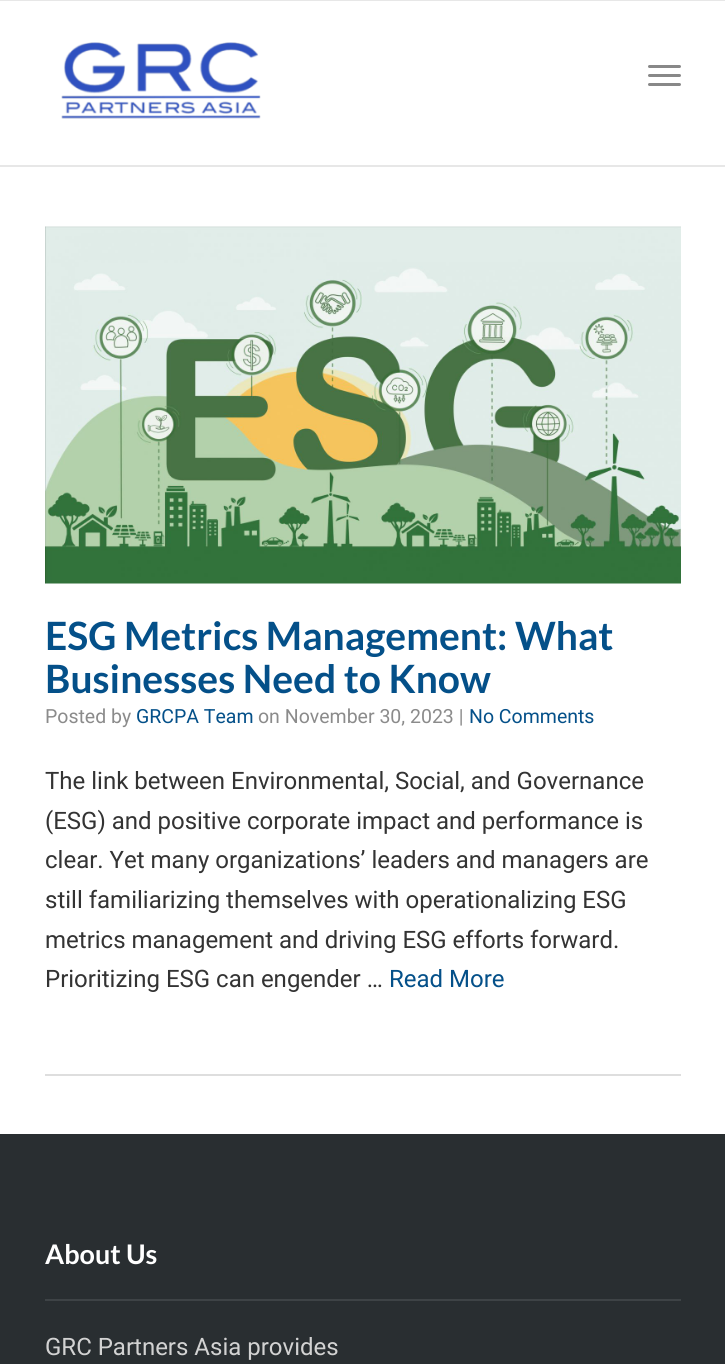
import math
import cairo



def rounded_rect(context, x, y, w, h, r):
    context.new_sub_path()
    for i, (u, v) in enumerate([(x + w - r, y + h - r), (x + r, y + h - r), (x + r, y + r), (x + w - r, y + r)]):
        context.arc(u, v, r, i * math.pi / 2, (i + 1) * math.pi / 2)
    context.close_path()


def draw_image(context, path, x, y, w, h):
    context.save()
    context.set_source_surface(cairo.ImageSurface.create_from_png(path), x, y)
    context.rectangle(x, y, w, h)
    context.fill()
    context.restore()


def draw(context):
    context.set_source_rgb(1, 1, 1)
    context.paint()
    context.set_source_rgb(231 / 255, 231 / 255, 231 / 255)
    context.rectangle(0, 0, 725, 1)
    context.fill()
    context.rectangle(0, 165, 725, 2)
    context.fill()
    draw_image(context, "images/1.png", 61, 42, 200, 77)
    context.set_source_rgb(136 / 255, 136 / 255, 136 / 255)
    rounded_rect(context, 648, 65, 33, 3, 1.5)
    context.fill()
    rounded_rect(context, 648, 74, 33, 3, 1.5)
    context.fill()
    rounded_rect(context, 648, 83, 33, 3, 1.5)
    context.fill()
    draw_image(context, "images/2.png", 45, 226, 636, 358)
    context.set_source_rgb(222 / 255, 222 / 255, 222 / 255)
    context.rectangle(45, 1074, 636, 2)
    context.fill()
    context.set_source_rgb(41 / 255, 46 / 255, 49 / 255)
    context.rectangle(0, 1134, 725, 230)
    context.fill()
    context.set_source_rgb(62 / 255, 67 / 255, 70 / 255)
    context.rectangle(45, 1299, 636, 2)
    context.fill()
    context.select_font_face("Lato", cairo.FontSlant.NORMAL, cairo.FontWeight.BOLD)
    context.set_font_size(39)
    context.set_source_rgb(4 / 255, 80 / 255, 137 / 255)
    context.move_to(45, 650)
    context.show_text("ESG Metrics Management: What")
    context.move_to(45, 693)
    context.show_text("Businesses Need to Know")
    context.select_font_face("Roboto")
    context.set_font_size(19.5)
    context.set_source_rgb(139 / 255, 139 / 255, 139 / 255)
    context.move_to(45, 723)
    context.show_text("Posted by")
    context.set_source_rgb(4 / 255, 80 / 255, 137 / 255)
    context.move_to(136, 723)
    context.show_text("GRCPA Team")
    context.set_source_rgb(139 / 255, 139 / 255, 139 / 255)
    context.move_to(258, 723)
    context.show_text("on November 30, 2023 |")
    context.set_source_rgb(4 / 255, 80 / 255, 137 / 255)
    context.move_to(469, 723)
    context.show_text("No Comments")
    context.set_font_size(24)
    context.set_source_rgb(51 / 255, 51 / 255, 51 / 255)
    context.move_to(45, 789)
    context.show_text("The link between Environmental, Social, and Governance")
    context.move_to(45, 829)
    context.show_text("(ESG) and positive corporate impact and performance is")
    context.move_to(45, 868)
    context.show_text("clear. Yet many organizations’ leaders and managers are")
    context.move_to(45, 908)
    context.show_text("still familiarizing themselves with operationalizing ESG")
    context.move_to(45, 948)
    context.show_text("metrics management and driving ESG efforts forward.")
    context.move_to(45, 987)
    context.show_text("Prioritizing ESG can engender …")
    context.set_source_rgb(4 / 255, 80 / 255, 137 / 255)
    context.move_to(389, 987)
    context.show_text("Read More")
    context.select_font_face("Lato", cairo.FontSlant.NORMAL, cairo.FontWeight.BOLD)
    context.set_font_size(27)
    context.set_source_rgb(1, 1, 1)
    context.move_to(45, 1264)
    context.show_text("About Us")
    context.select_font_face("Roboto")
    context.set_font_size(24)
    context.set_source_rgb(210 / 255, 210 / 255, 210 / 255)
    context.move_to(45, 1355)
    context.show_text("GRC Partners Asia provides")


surface = cairo.ImageSurface(cairo.Format.RGB24, 725, 1364)
context = cairo.Context(surface)
options = cairo.FontOptions()
options.set_hint_metrics(cairo.HintMetrics.OFF)
options.set_hint_style(cairo.HintStyle.NONE)
context.set_font_options(options)
context.set_miter_limit(4)
draw(context)
surface.write_to_png("out.png")
